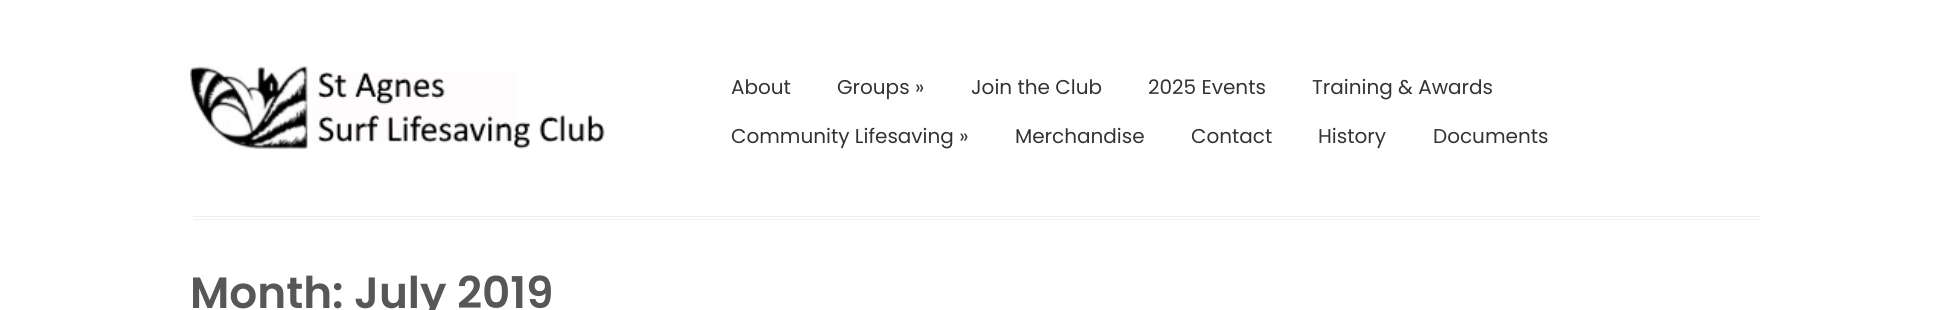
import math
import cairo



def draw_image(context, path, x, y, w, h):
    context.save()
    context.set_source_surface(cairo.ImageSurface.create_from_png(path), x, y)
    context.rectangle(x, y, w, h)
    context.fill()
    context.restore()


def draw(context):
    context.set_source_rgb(1, 1, 1)
    context.paint()
    draw_image(context, "images/1.png", 190, 66, 415, 84)
    context.set_source_rgb(238 / 255, 238 / 255, 238 / 255)
    context.rectangle(193, 216, 1567, 1)
    context.fill()
    context.rectangle(193, 219, 1567, 1)
    context.fill()
    context.select_font_face("Poppins")
    context.set_font_size(20)
    context.set_source_rgb(51 / 255, 51 / 255, 51 / 255)
    context.move_to(731, 94)
    context.show_text("About")
    context.move_to(837, 94)
    context.show_text("Groups »")
    context.move_to(971, 94)
    context.show_text("Join the Club")
    context.move_to(1148, 94)
    context.show_text("2025 Events")
    context.move_to(1312, 94)
    context.show_text("Training & Awards")
    context.move_to(731, 143)
    context.show_text("Community Lifesaving »")
    context.move_to(1015, 143)
    context.show_text("Merchandise")
    context.move_to(1191, 143)
    context.show_text("Contact")
    context.move_to(1318, 143)
    context.show_text("History")
    context.move_to(1433, 143)
    context.show_text("Documents")
    context.select_font_face("Poppins SemiBold")
    context.set_font_size(43.75)
    context.set_source_rgb(88 / 255, 86 / 255, 86 / 255)
    context.move_to(190, 308)
    context.show_text("Month: July 2019")


surface = cairo.ImageSurface(cairo.Format.RGB24, 1952, 310)
context = cairo.Context(surface)
options = cairo.FontOptions()
options.set_hint_metrics(cairo.HintMetrics.OFF)
options.set_hint_style(cairo.HintStyle.NONE)
context.set_font_options(options)
context.set_miter_limit(4)
draw(context)
surface.write_to_png("out.png")
